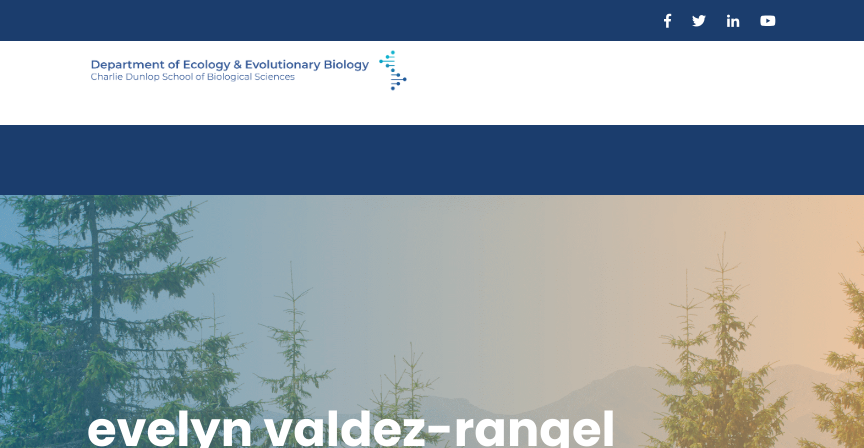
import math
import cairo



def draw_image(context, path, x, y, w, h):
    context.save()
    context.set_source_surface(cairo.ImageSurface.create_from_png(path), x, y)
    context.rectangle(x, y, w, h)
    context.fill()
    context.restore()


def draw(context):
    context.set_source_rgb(1, 1, 1)
    context.paint()
    context.set_source_rgb(27 / 255, 61 / 255, 109 / 255)
    context.rectangle(0, 0, 864, 41)
    context.fill()
    draw_image(context, "images/1.png", 664, 13, 8, 15)
    draw_image(context, "images/2.png", 692, 15, 14, 12)
    draw_image(context, "images/3.png", 727, 14, 13, 13)
    draw_image(context, "images/4.png", 760, 15, 16, 11)
    draw_image(context, "images/5.png", 91, 50, 316, 41)
    context.rectangle(0, 125, 864, 70)
    context.fill()
    draw_image(context, "images/6.png", 0, 195, 864, 253)
    context.select_font_face("Poppins", cairo.FontSlant.NORMAL, cairo.FontWeight.BOLD)
    context.set_font_size(48)
    context.set_source_rgb(1, 1, 1)
    context.move_to(87, 446)
    context.show_text("evelyn valdez-rangel")


surface = cairo.ImageSurface(cairo.Format.RGB24, 864, 448)
context = cairo.Context(surface)
options = cairo.FontOptions()
options.set_hint_metrics(cairo.HintMetrics.OFF)
options.set_hint_style(cairo.HintStyle.NONE)
context.set_font_options(options)
context.set_miter_limit(4)
draw(context)
surface.write_to_png("out.png")
